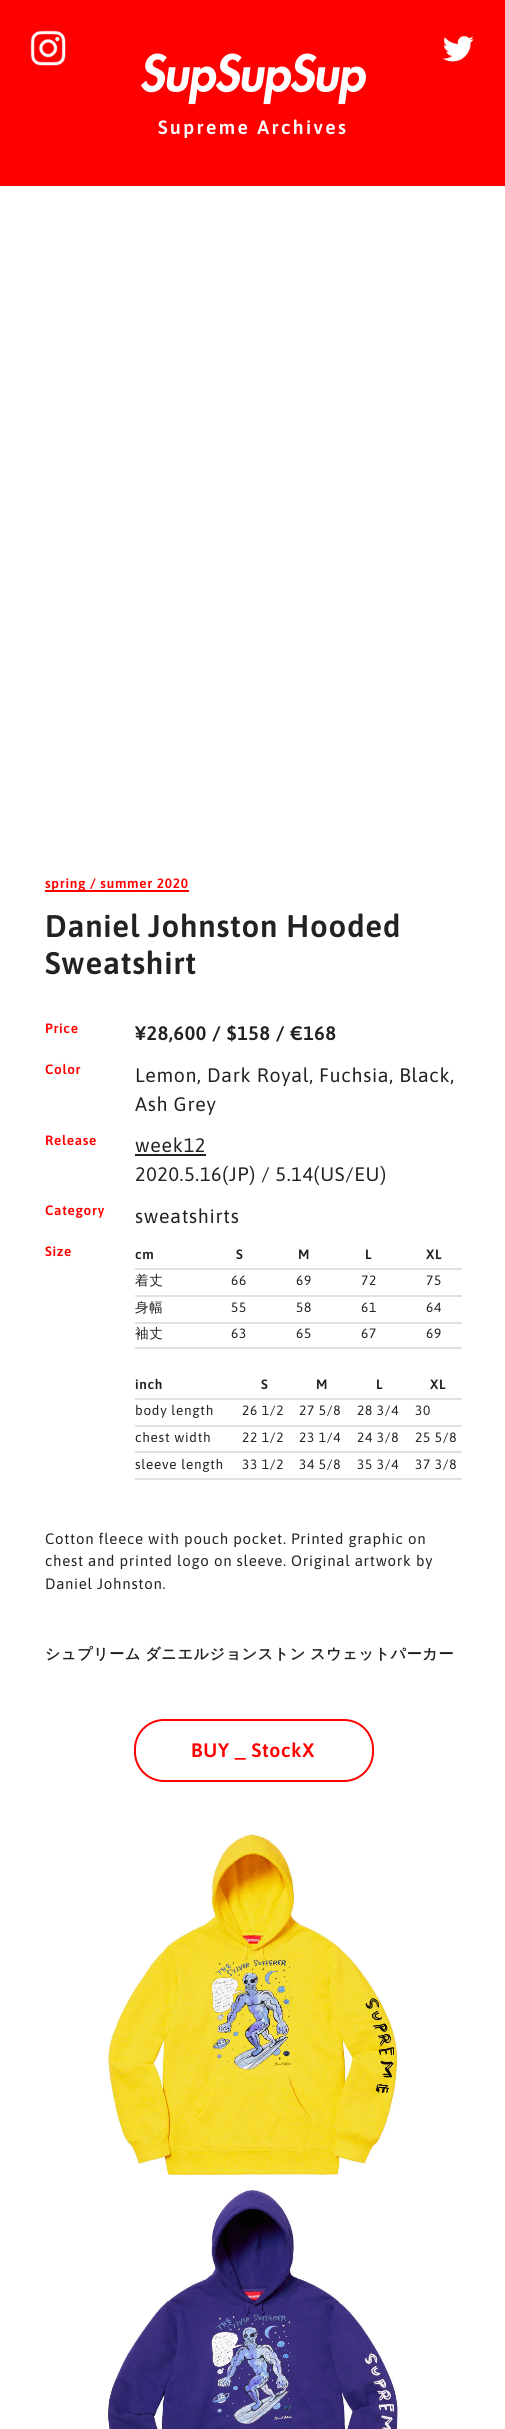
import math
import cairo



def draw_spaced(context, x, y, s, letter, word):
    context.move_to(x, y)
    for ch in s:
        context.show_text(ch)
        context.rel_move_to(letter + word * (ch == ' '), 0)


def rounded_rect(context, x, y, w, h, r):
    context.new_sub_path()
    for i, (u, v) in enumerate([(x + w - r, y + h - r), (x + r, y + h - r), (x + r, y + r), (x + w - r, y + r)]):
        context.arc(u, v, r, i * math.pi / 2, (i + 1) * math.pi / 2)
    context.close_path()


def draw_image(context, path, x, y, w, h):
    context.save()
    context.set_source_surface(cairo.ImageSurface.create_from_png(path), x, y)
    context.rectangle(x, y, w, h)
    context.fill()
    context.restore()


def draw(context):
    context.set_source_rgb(1, 1, 1)
    context.paint()
    context.set_source_rgb(1, 0, 0)
    context.rectangle(0, 0, 505, 186)
    context.fill()
    draw_image(context, "images/1.png", 30, 30, 36, 36)
    draw_image(context, "images/2.png", 442, 35, 32, 27)
    draw_image(context, "images/3.png", 141, 53, 225, 52)
    context.rectangle(45, 890, 144, 2)
    context.fill()
    context.set_source_rgb(34 / 255, 34 / 255, 34 / 255)
    context.rectangle(135, 1154, 71, 2)
    context.fill()
    context.set_source_rgb(222 / 255, 226 / 255, 230 / 255)
    context.rectangle(135, 1268, 327, 2)
    context.fill()
    context.rectangle(135, 1295, 327, 2)
    context.fill()
    context.rectangle(135, 1322, 327, 2)
    context.fill()
    context.rectangle(135, 1347, 327, 2)
    context.fill()
    context.rectangle(135, 1398, 327, 2)
    context.fill()
    context.rectangle(135, 1425, 327, 2)
    context.fill()
    context.rectangle(135, 1451, 327, 2)
    context.fill()
    context.rectangle(135, 1478, 327, 2)
    context.fill()
    rounded_rect(context, 135, 1720, 238, 61, 29)
    context.set_source_rgb(1, 0, 0)
    context.stroke()
    draw_image(context, "images/4.png", 106, 1834, 292, 341)
    draw_image(context, "images/5.png", 107, 2190, 293, 239)
    context.select_font_face("Asap SemiBold")
    context.set_font_size(19.25)
    context.set_source_rgb(1, 1, 1)
    draw_spaced(context, 158, 134, "Supreme Archives", 2.4, 0)
    context.set_font_size(13.5)
    context.set_source_rgb(1, 0, 0)
    draw_spaced(context, 45, 888, "spring / summer 2020", 0.72, 0)
    context.set_font_size(31.25)
    context.set_source_rgb(34 / 255, 34 / 255, 34 / 255)
    draw_spaced(context, 45, 937, "Daniel Johnston Hooded", 0.72, 0)
    draw_spaced(context, 45, 974, "Sweatshirt", 0.72, 0)
    context.set_font_size(13.5)
    context.set_source_rgb(1, 0, 0)
    draw_spaced(context, 45, 1033, "Price", 0.72, 0)
    context.set_font_size(19.5)
    context.set_source_rgb(34 / 255, 34 / 255, 34 / 255)
    draw_spaced(context, 135, 1040, "¥28,600 / $158 / €168", 0.72, 0)
    context.set_font_size(13.5)
    context.set_source_rgb(1, 0, 0)
    draw_spaced(context, 45, 1074, "Color", 0.72, 0)
    context.select_font_face("Asap")
    context.set_font_size(19.5)
    context.set_source_rgb(34 / 255, 34 / 255, 34 / 255)
    draw_spaced(context, 135, 1082, "Lemon, Dark Royal, Fuchsia, Black,", 0.72, 0)
    draw_spaced(context, 135, 1111, "Ash Grey", 0.72, 0)
    context.select_font_face("Asap SemiBold")
    context.set_font_size(13.5)
    context.set_source_rgb(1, 0, 0)
    draw_spaced(context, 45, 1145, "Release", 0.72, 0)
    context.select_font_face("Asap")
    context.set_font_size(19.5)
    context.set_source_rgb(34 / 255, 34 / 255, 34 / 255)
    draw_spaced(context, 135, 1152, "week12", 0.72, 0)
    draw_spaced(context, 135, 1181, "2020.5.16(JP) / 5.14(US/EU)", 0.72, 0)
    context.select_font_face("Asap SemiBold")
    context.set_font_size(13.5)
    context.set_source_rgb(1, 0, 0)
    draw_spaced(context, 45, 1215, "Category", 0.72, 0)
    context.select_font_face("Asap")
    context.set_font_size(19.5)
    context.set_source_rgb(34 / 255, 34 / 255, 34 / 255)
    draw_spaced(context, 135, 1223, "sweatshirts", 0.72, 0)
    context.select_font_face("Asap SemiBold")
    context.set_font_size(13.5)
    context.set_source_rgb(1, 0, 0)
    draw_spaced(context, 45, 1256, "Size", 0.72, 0)
    context.set_source_rgb(34 / 255, 34 / 255, 34 / 255)
    draw_spaced(context, 135, 1259, "cm", 0.72, 0)
    draw_spaced(context, 236, 1259, "S", 0.72, 0)
    draw_spaced(context, 298, 1259, "M", 0.72, 0)
    draw_spaced(context, 365, 1259, "L", 0.72, 0)
    draw_spaced(context, 426, 1259, "XL", 0.72, 0)
    context.select_font_face("WenQuanYi Zen Hei Medium")
    draw_spaced(context, 135, 1285, "着丈", 0.72, 0)
    context.select_font_face("Asap")
    draw_spaced(context, 231, 1285, "66", 0.72, 0)
    draw_spaced(context, 296, 1285, "69", 0.72, 0)
    draw_spaced(context, 361, 1285, "72", 0.72, 0)
    draw_spaced(context, 426, 1285, "75", 0.72, 0)
    context.select_font_face("WenQuanYi Zen Hei Medium")
    draw_spaced(context, 135, 1312, "身幅", 0.72, 0)
    context.select_font_face("Asap")
    draw_spaced(context, 231, 1312, "55", 0.72, 0)
    draw_spaced(context, 296, 1312, "58", 0.72, 0)
    draw_spaced(context, 361, 1312, "61", 0.72, 0)
    draw_spaced(context, 426, 1312, "64", 0.72, 0)
    context.select_font_face("WenQuanYi Zen Hei Medium")
    draw_spaced(context, 135, 1338, "袖丈", 0.72, 0)
    context.select_font_face("Asap")
    draw_spaced(context, 231, 1338, "63", 0.72, 0)
    draw_spaced(context, 296, 1338, "65", 0.72, 0)
    draw_spaced(context, 361, 1338, "67", 0.72, 0)
    draw_spaced(context, 426, 1338, "69", 0.72, 0)
    context.select_font_face("Asap SemiBold")
    draw_spaced(context, 135, 1389, "inch", 0.72, 0)
    draw_spaced(context, 261, 1389, "S", 0.72, 0)
    draw_spaced(context, 316, 1389, "M", 0.72, 0)
    draw_spaced(context, 376, 1389, "L", 0.72, 0)
    draw_spaced(context, 430, 1389, "XL", 0.72, 0)
    context.select_font_face("Asap")
    draw_spaced(context, 135, 1415, "body length", 0.72, 0)
    draw_spaced(context, 242, 1415, "26 1/2", 0.72, 0)
    draw_spaced(context, 299, 1415, "27 5/8", 0.72, 0)
    draw_spaced(context, 357, 1415, "28 3/4", 0.72, 0)
    draw_spaced(context, 415, 1415, "30", 0.72, 0)
    draw_spaced(context, 135, 1442, "chest width", 0.72, 0)
    draw_spaced(context, 242, 1442, "22 1/2", 0.72, 0)
    draw_spaced(context, 299, 1442, "23 1/4", 0.72, 0)
    draw_spaced(context, 357, 1442, "24 3/8", 0.72, 0)
    draw_spaced(context, 415, 1442, "25 5/8", 0.72, 0)
    draw_spaced(context, 135, 1469, "sleeve length", 0.72, 0)
    draw_spaced(context, 242, 1469, "33 1/2", 0.72, 0)
    draw_spaced(context, 299, 1469, "34 5/8", 0.72, 0)
    draw_spaced(context, 357, 1469, "35 3/4", 0.72, 0)
    draw_spaced(context, 415, 1469, "37 3/8", 0.72, 0)
    context.set_font_size(15)
    draw_spaced(context, 45, 1544, "Cotton fleece with pouch pocket. Printed graphic on", 0.72, 0)
    draw_spaced(context, 45, 1566, "chest and printed logo on sleeve. Original artwork by", 0.72, 0)
    draw_spaced(context, 45, 1589, "Daniel Johnston.", 0.72, 0)
    context.select_font_face("WenQuanYi Zen Hei", cairo.FontSlant.NORMAL, cairo.FontWeight.BOLD)
    draw_spaced(context, 45, 1659, "シュプリーム ダニエルジョンストン スウェットパーカー", 0.72, -1)
    context.select_font_face("Asap SemiBold")
    context.set_font_size(19.5)
    context.set_source_rgb(1, 0, 0)
    draw_spaced(context, 191, 1757, "BUY _ StockX", 0.72, 0)


surface = cairo.ImageSurface(cairo.Format.RGB24, 505, 2429)
context = cairo.Context(surface)
options = cairo.FontOptions()
options.set_hint_metrics(cairo.HintMetrics.OFF)
options.set_hint_style(cairo.HintStyle.NONE)
context.set_font_options(options)
context.set_miter_limit(4)
draw(context)
surface.write_to_png("out.png")
